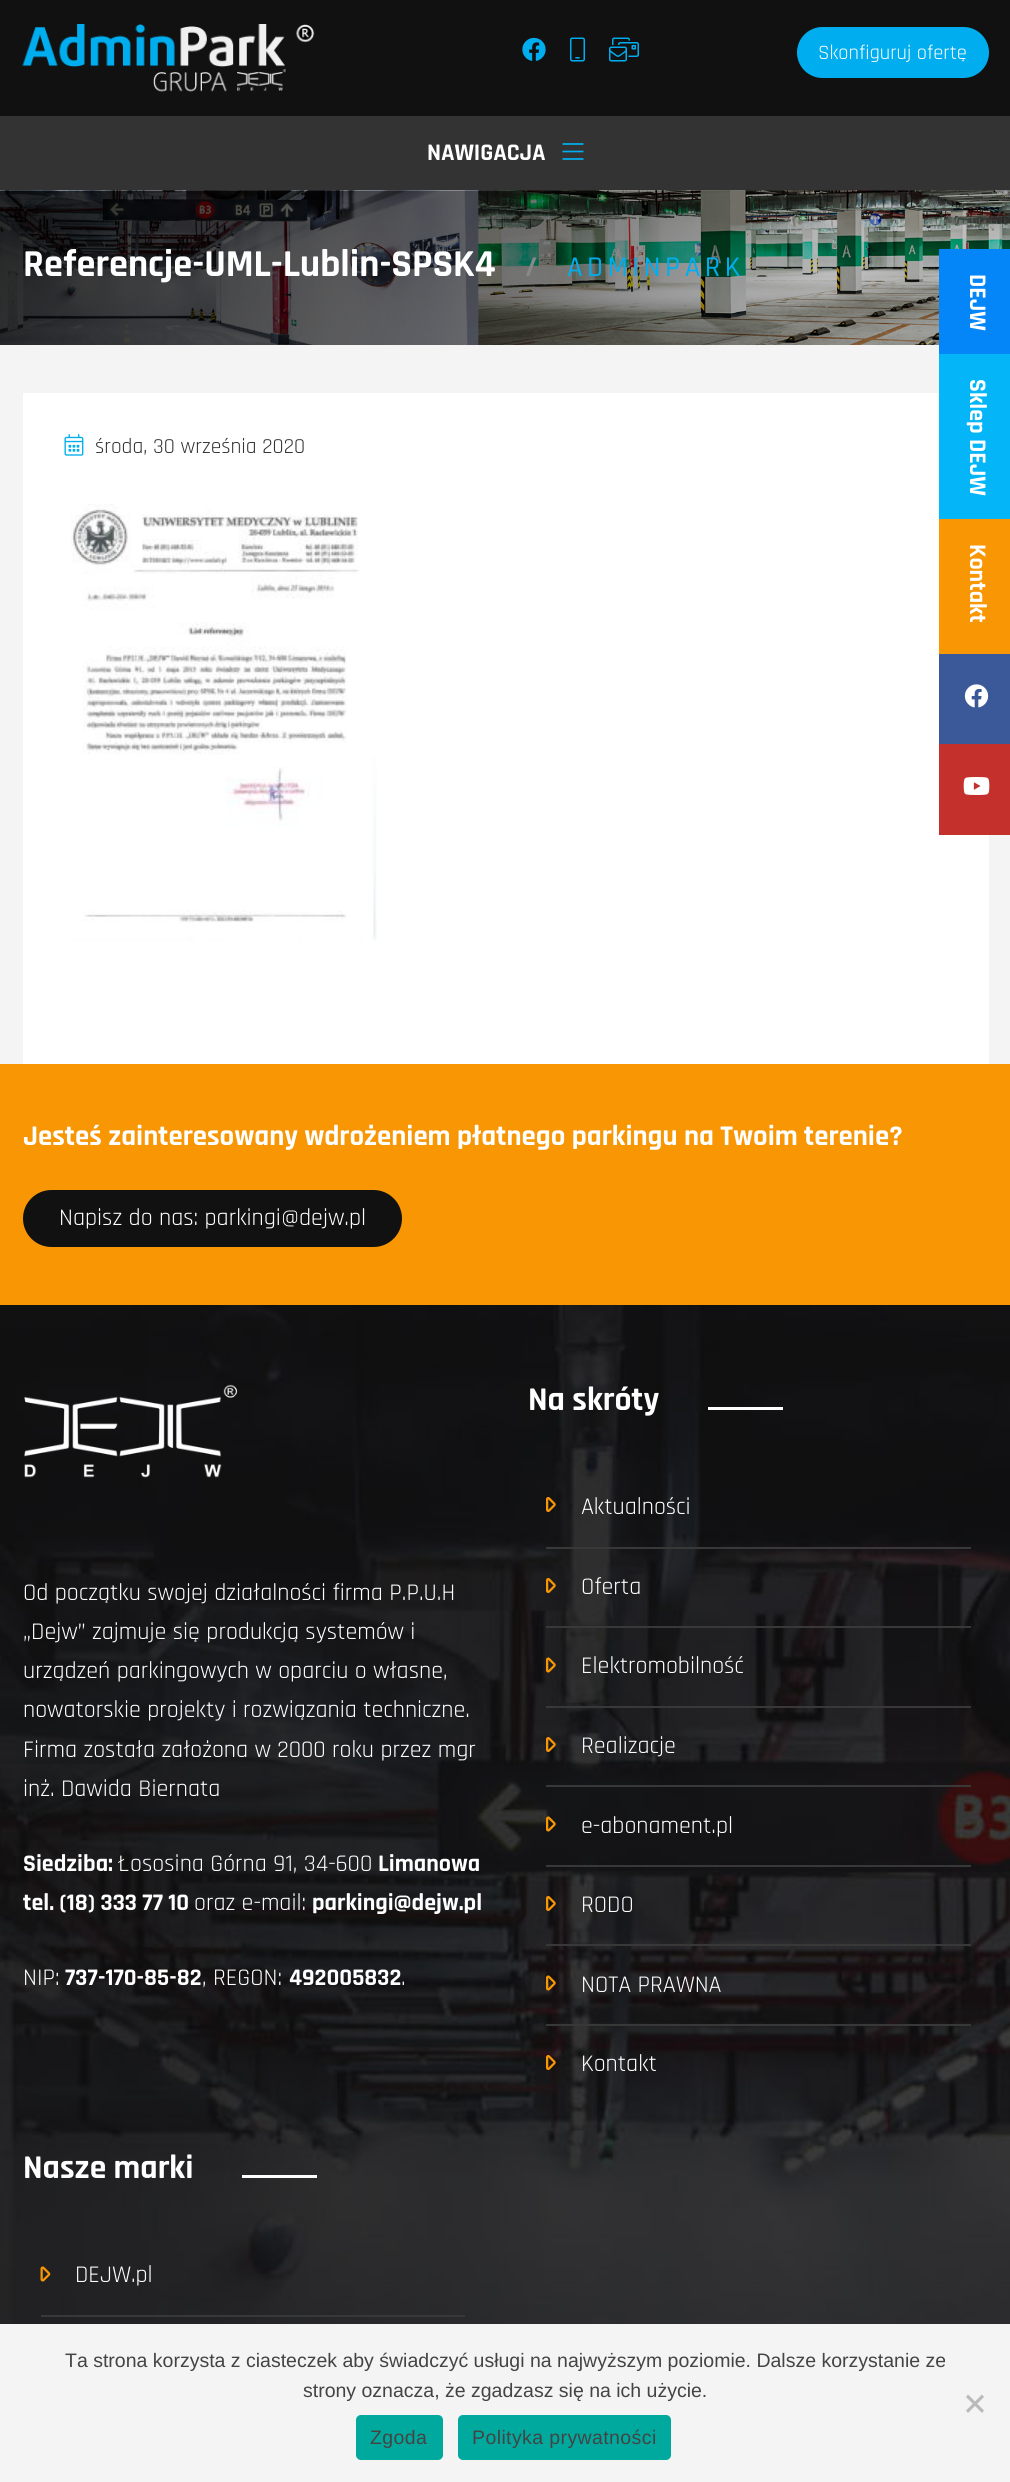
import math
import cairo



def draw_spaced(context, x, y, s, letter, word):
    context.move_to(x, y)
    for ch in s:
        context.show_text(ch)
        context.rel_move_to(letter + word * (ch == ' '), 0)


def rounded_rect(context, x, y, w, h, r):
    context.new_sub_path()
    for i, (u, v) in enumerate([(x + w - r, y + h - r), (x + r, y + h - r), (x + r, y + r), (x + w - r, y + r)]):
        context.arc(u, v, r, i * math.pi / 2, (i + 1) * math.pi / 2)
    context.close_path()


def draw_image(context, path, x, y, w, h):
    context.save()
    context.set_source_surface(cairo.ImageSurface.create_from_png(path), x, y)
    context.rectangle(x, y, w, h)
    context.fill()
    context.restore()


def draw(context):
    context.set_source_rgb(17 / 255, 17 / 255, 17 / 255)
    context.paint()
    context.set_source_rgb(51 / 255, 51 / 255, 51 / 255)
    context.rectangle(0, 116, 1010, 75)
    context.fill()
    draw_image(context, "images/1.png", 562, 143, 22, 17)
    draw_image(context, "images/2.png", 22, 24, 293, 68)
    draw_image(context, "images/3.png", 522, 37, 24, 24)
    draw_image(context, "images/4.png", 570, 37, 15, 25)
    draw_image(context, "images/5.png", 609, 37, 30, 25)
    context.set_source_rgb(0, 174 / 255, 239 / 255)
    rounded_rect(context, 798.5, 28.5, 189, 48, 24)
    context.fill_preserve()
    context.set_line_width(3)
    context.stroke()
    draw_image(context, "images/8.png", 0, 190, 1010, 155)
    context.set_source_rgb(244 / 255, 244 / 255, 244 / 255)
    context.rectangle(0, 345, 1010, 719)
    context.fill()
    context.set_source_rgb(4 / 255, 134 / 255, 248 / 255)
    context.rectangle(939, 249, 71, 105)
    context.fill()
    context.set_source_rgb(1, 1, 1)
    context.rectangle(23, 393, 966, 671)
    context.fill()
    context.set_source_rgb(4 / 255, 181 / 255, 248 / 255)
    context.rectangle(939, 354, 71, 165)
    context.fill()
    context.set_source_rgb(248 / 255, 150 / 255, 4 / 255)
    context.rectangle(939, 519, 71, 135)
    context.fill()
    context.set_source_rgb(59 / 255, 89 / 255, 152 / 255)
    context.rectangle(939, 654, 71, 90)
    context.fill()
    draw_image(context, "images/6.png", 964, 684, 25, 24)
    context.set_source_rgb(196 / 255, 48 / 255, 43 / 255)
    context.rectangle(939, 744, 71, 91)
    context.fill()
    draw_image(context, "images/7.png", 963, 777, 27, 18)
    draw_image(context, "images/9.png", 64, 434, 20, 22)
    draw_image(context, "images/10.png", 70, 504, 307, 437)
    context.set_source_rgb(248 / 255, 150 / 255, 4 / 255)
    context.rectangle(0, 1064, 1010, 241)
    context.fill()
    context.set_source_rgb(17 / 255, 17 / 255, 17 / 255)
    rounded_rect(context, 24.5, 1191.5, 376, 54, 27)
    context.fill_preserve()
    context.stroke()
    draw_image(context, "images/11.png", 0, 1305, 1010, 1019)
    draw_image(context, "images/12.png", 24, 1384, 214, 94)
    context.set_source_rgb(1, 1, 1)
    context.rectangle(708, 1407, 75, 3)
    context.fill()
    context.set_source_rgb(56 / 255, 56 / 255, 56 / 255)
    context.rectangle(546, 1547, 425, 2)
    context.fill()
    draw_image(context, "images/13.png", 546, 1497, 10, 15)
    context.rectangle(546, 1626, 425, 2)
    context.fill()
    draw_image(context, "images/14.png", 546, 1578, 10, 15)
    context.rectangle(546, 1706, 425, 2)
    context.fill()
    draw_image(context, "images/15.png", 546, 1657, 10, 16)
    context.rectangle(546, 1785, 425, 2)
    context.fill()
    draw_image(context, "images/16.png", 546, 1737, 10, 15)
    context.rectangle(546, 1865, 425, 2)
    context.fill()
    draw_image(context, "images/17.png", 546, 1816, 10, 16)
    context.rectangle(546, 1944, 425, 2)
    context.fill()
    draw_image(context, "images/18.png", 546, 1896, 10, 15)
    context.rectangle(546, 2024, 425, 2)
    context.fill()
    draw_image(context, "images/19.png", 546, 1975, 10, 16)
    draw_image(context, "images/20.png", 546, 2055, 10, 15)
    context.set_source_rgb(1, 1, 1)
    context.rectangle(242, 2175, 75, 3)
    context.fill()
    context.set_source_rgb(56 / 255, 56 / 255, 56 / 255)
    context.rectangle(41, 2315, 424, 2)
    context.fill()
    draw_image(context, "images/21.png", 40, 2266, 11, 16)
    context.set_source_rgb(244 / 255, 244 / 255, 244 / 255)
    context.rectangle(0, 2324, 1010, 158)
    context.fill()
    context.set_source_rgb(186 / 255, 186 / 255, 186 / 255)
    context.new_path()
    context.move_to(982, 2394.5)
    context.line_to(984, 2397)
    context.line_to(968, 2413)
    context.line_to(966, 2410.5)
    context.close_path()
    context.fill()
    context.new_path()
    context.move_to(966, 2397)
    context.line_to(968, 2394.5)
    context.line_to(984, 2410.5)
    context.line_to(982, 2413)
    context.close_path()
    context.fill()
    context.set_source_rgb(0, 169 / 255, 157 / 255)
    rounded_rect(context, 356, 2415, 87, 45, 5)
    context.fill()
    rounded_rect(context, 458, 2415, 213, 45, 5)
    context.fill()
    context.select_font_face("Rajdhani", cairo.FontSlant.NORMAL, cairo.FontWeight.BOLD)
    context.set_font_size(24)
    context.set_source_rgb(1, 1, 1)
    context.move_to(427, 160)
    context.show_text("NAWIGACJA")
    context.select_font_face("Rajdhani")
    context.set_font_size(20.5)
    context.move_to(818, 59)
    context.show_text("Skonfiguruj ofertę")
    context.select_font_face("Rajdhani", cairo.FontSlant.NORMAL, cairo.FontWeight.BOLD)
    context.set_font_size(24)
    context.save()
    context.translate(970, 274)
    context.rotate(90 * math.pi / 180)
    context.move_to(0, 0)
    context.show_text("DEJW")
    context.restore()
    context.save()
    context.translate(970, 379)
    context.rotate(90 * math.pi / 180)
    context.move_to(0, 0)
    context.show_text("Sklep DEJW")
    context.restore()
    context.save()
    context.translate(970, 544)
    context.rotate(90 * math.pi / 180)
    context.move_to(0, 0)
    context.show_text("Kontakt")
    context.restore()
    context.set_font_size(38.4)
    context.move_to(23, 276)
    context.show_text("Referencje-UML-Lublin-SPSK4")
    context.set_font_size(28.8)
    context.set_source_rgb(136 / 255, 136 / 255, 136 / 255)
    context.move_to(525, 276)
    context.show_text("/")
    context.select_font_face("Rajdhani Medium")
    context.set_source_rgb(0, 174 / 255, 239 / 255)
    draw_spaced(context, 567, 276, "ADMINPARK", 4.5, 0)
    context.select_font_face("Rajdhani")
    context.set_font_size(21.5)
    context.set_source_rgb(51 / 255, 51 / 255, 51 / 255)
    context.move_to(95, 453)
    context.show_text("środa, 30 września 2020")
    context.select_font_face("Rajdhani", cairo.FontSlant.NORMAL, cairo.FontWeight.BOLD)
    context.set_font_size(28.8)
    context.set_source_rgb(1, 1, 1)
    context.move_to(23, 1145)
    context.show_text("Jesteś zainteresowany wdrożeniem płatnego parkingu na Twoim terenie?")
    context.select_font_face("Rajdhani")
    context.set_font_size(24)
    context.move_to(59, 1225)
    context.show_text("Napisz do nas: parkingi@dejw.pl")
    context.move_to(23, 1600)
    context.show_text("Od początku swojej działalności firma P.P.U.H")
    context.move_to(23, 1639)
    context.show_text("„Dejw” zajmuje się produkcją systemów i")
    context.move_to(23, 1678)
    context.show_text("urządzeń parkingowych w oparciu o własne,")
    context.move_to(23, 1717)
    context.show_text("nowatorskie projekty i rozwiązania techniczne.")
    context.move_to(23, 1757)
    context.show_text("Firma została założona w 2000 roku przez mgr")
    context.move_to(23, 1796)
    context.show_text("inż. Dawida Biernata")
    context.select_font_face("Rajdhani", cairo.FontSlant.NORMAL, cairo.FontWeight.BOLD)
    context.move_to(23, 1871)
    context.show_text("Siedziba:")
    context.select_font_face("Rajdhani")
    context.move_to(118, 1871)
    context.show_text("Łososina Górna 91, 34-600")
    context.select_font_face("Rajdhani", cairo.FontSlant.NORMAL, cairo.FontWeight.BOLD)
    context.move_to(378, 1871)
    context.show_text("Limanowa")
    context.move_to(23, 1910)
    context.show_text("tel. (18) 333 77 10")
    context.select_font_face("Rajdhani")
    context.move_to(194, 1910)
    context.show_text("oraz e-mail:")
    context.select_font_face("Rajdhani", cairo.FontSlant.NORMAL, cairo.FontWeight.BOLD)
    context.move_to(312, 1910)
    context.show_text("parkingi@dejw.pl")
    context.select_font_face("Rajdhani")
    context.move_to(23, 1985)
    context.show_text("NIP:")
    context.select_font_face("Rajdhani", cairo.FontSlant.NORMAL, cairo.FontWeight.BOLD)
    context.move_to(65, 1985)
    context.show_text("737-170-85-82")
    context.select_font_face("Rajdhani")
    context.move_to(202, 1985)
    context.show_text(", REGON:")
    context.select_font_face("Rajdhani", cairo.FontSlant.NORMAL, cairo.FontWeight.BOLD)
    context.move_to(289, 1985)
    context.show_text("492005832")
    context.select_font_face("Rajdhani")
    context.move_to(401, 1985)
    context.show_text(".")
    context.select_font_face("Rajdhani", cairo.FontSlant.NORMAL, cairo.FontWeight.BOLD)
    context.set_font_size(33.5)
    context.move_to(528, 1410)
    context.show_text("Na skróty")
    context.select_font_face("Rajdhani")
    context.set_font_size(24)
    context.move_to(581, 1514)
    context.show_text("Aktualności")
    context.move_to(581, 1594)
    context.show_text("Oferta")
    context.move_to(581, 1673)
    context.show_text("Elektromobilność")
    context.move_to(581, 1753)
    context.show_text("Realizacje")
    context.move_to(581, 1833)
    context.show_text("e-abonament.pl")
    context.move_to(581, 1912)
    context.show_text("RODO")
    context.move_to(581, 1992)
    context.show_text("NOTA PRAWNA")
    context.move_to(581, 2071)
    context.show_text("Kontakt")
    context.select_font_face("Rajdhani", cairo.FontSlant.NORMAL, cairo.FontWeight.BOLD)
    context.set_font_size(33.5)
    context.move_to(23, 2178)
    context.show_text("Nasze marki")
    context.select_font_face("Rajdhani")
    context.set_font_size(24)
    context.move_to(75, 2282)
    context.show_text("DEJW.pl")
    context.select_font_face("Liberation Sans")
    context.set_font_size(19.5)
    context.set_source_rgb(68 / 255, 68 / 255, 68 / 255)
    context.move_to(65, 2367)
    context.show_text("Ta strona korzysta z ciasteczek aby świadczyć usługi na najwyższym poziomie. Dalsze korzystanie ze")
    context.move_to(303, 2397)
    context.show_text("strony oznacza, że zgadzasz się na ich użycie.")
    draw_spaced(context, 370, 2444, "Zgoda", 0.4, 0)
    draw_spaced(context, 472, 2444, "Polityka prywatności", 0.4, 0)


surface = cairo.ImageSurface(cairo.Format.RGB24, 1010, 2482)
context = cairo.Context(surface)
options = cairo.FontOptions()
options.set_hint_metrics(cairo.HintMetrics.OFF)
options.set_hint_style(cairo.HintStyle.NONE)
context.set_font_options(options)
context.set_miter_limit(4)
draw(context)
surface.write_to_png("out.png")
